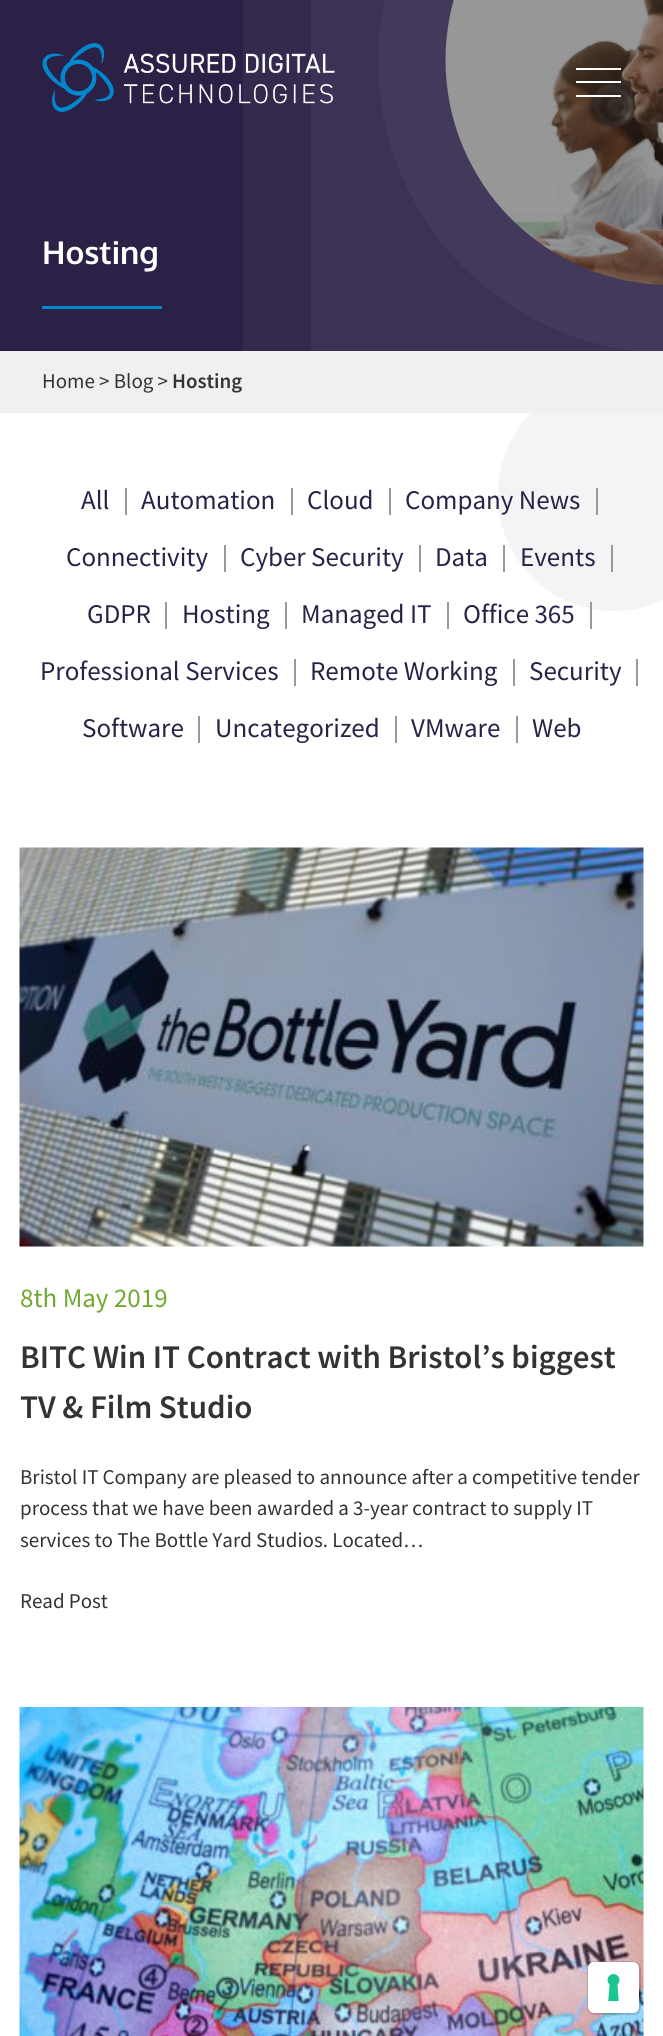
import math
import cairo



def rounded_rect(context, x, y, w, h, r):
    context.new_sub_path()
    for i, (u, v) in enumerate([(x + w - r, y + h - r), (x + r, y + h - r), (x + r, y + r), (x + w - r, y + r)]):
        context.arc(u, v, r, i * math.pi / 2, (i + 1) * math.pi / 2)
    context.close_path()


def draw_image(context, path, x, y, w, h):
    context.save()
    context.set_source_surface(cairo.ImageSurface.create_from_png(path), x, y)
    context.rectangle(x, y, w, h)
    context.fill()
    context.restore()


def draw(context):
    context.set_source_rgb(1, 1, 1)
    context.paint()
    context.set_source_rgb(43 / 255, 33 / 255, 71 / 255)
    context.rectangle(0, 0, 636, 351)
    context.fill()
    context.set_source_rgb(244 / 255, 244 / 255, 246 / 255)
    rounded_rect(context, 498, 378, 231, 233, 115.5)
    context.fill()
    context.set_source_rgb(240 / 255, 240 / 255, 240 / 255)
    context.rectangle(0, 351, 663, 62)
    context.fill()
    context.save()
    context.rectangle(0, 0, 663, 351)
    context.clip()
    context.set_source_rgb(50 / 255, 41 / 255, 77 / 255)
    rounded_rect(context, 378, -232, 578, 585, 292.5)
    context.fill()
    context.restore()
    context.set_source_rgba(1, 1, 1, 0.04)
    context.rectangle(311, 0, 352, 351)
    context.fill()
    context.rectangle(243, 0, 420, 351)
    context.fill()
    draw_image(context, "images/1.png", 42, 43, 293, 69)
    draw_image(context, "images/2.png", 445, 0, 218, 285)
    context.set_source_rgb(1, 1, 1)
    context.rectangle(576, 68, 45, 2)
    context.fill()
    context.rectangle(576, 81, 45, 2)
    context.fill()
    context.rectangle(576, 95, 45, 2)
    context.fill()
    context.set_source_rgb(0, 136 / 255, 206 / 255)
    context.rectangle(42, 306, 120, 3)
    context.fill()
    context.set_source_rgb(153 / 255, 153 / 255, 153 / 255)
    context.rectangle(125, 488, 2, 27)
    context.fill()
    context.rectangle(291, 488, 2, 27)
    context.fill()
    context.rectangle(389, 488, 2, 27)
    context.fill()
    context.rectangle(596, 488, 2, 27)
    context.fill()
    context.rectangle(224, 545, 2, 27)
    context.fill()
    context.rectangle(419, 545, 2, 27)
    context.fill()
    context.rectangle(503, 545, 2, 27)
    context.fill()
    context.rectangle(611, 545, 2, 27)
    context.fill()
    context.rectangle(165, 602, 2, 27)
    context.fill()
    context.rectangle(285, 602, 2, 27)
    context.fill()
    context.rectangle(447, 602, 2, 27)
    context.fill()
    context.rectangle(590, 602, 2, 27)
    context.fill()
    context.rectangle(294, 659, 2, 27)
    context.fill()
    context.rectangle(513, 659, 2, 27)
    context.fill()
    context.rectangle(636, 659, 2, 27)
    context.fill()
    context.rectangle(198, 716, 2, 27)
    context.fill()
    context.rectangle(395, 716, 2, 27)
    context.fill()
    context.rectangle(516, 716, 2, 27)
    context.fill()
    draw_image(context, "images/3.png", 19, 847, 625, 400)
    draw_image(context, "images/4.png", 19, 1707, 625, 329)
    rounded_rect(context, 588, 1962, 52, 52, 7)
    context.set_source_rgba(0, 0, 0, 0.15)
    context.stroke()
    context.set_source_rgb(1, 1, 1)
    rounded_rect(context, 588, 1962, 51, 51, 6)
    context.fill()
    draw_image(context, "images/5.png", 607, 1974, 13, 27)
    context.select_font_face("Oxygen", cairo.FontSlant.NORMAL, cairo.FontWeight.BOLD)
    context.set_font_size(31.5)
    context.move_to(42, 264)
    context.show_text("Hosting")
    context.select_font_face("Source Sans Pro")
    context.set_font_size(21)
    context.set_source_rgb(51 / 255, 51 / 255, 51 / 255)
    context.move_to(42, 388)
    context.show_text("Home > Blog >")
    context.select_font_face("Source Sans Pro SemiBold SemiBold")
    context.move_to(172, 388)
    context.show_text("Hosting")
    context.select_font_face("Source Sans Pro")
    context.set_font_size(27)
    context.set_source_rgb(43 / 255, 33 / 255, 71 / 255)
    context.move_to(81, 509)
    context.show_text("All")
    context.move_to(141, 509)
    context.show_text("Automation")
    context.move_to(307, 509)
    context.show_text("Cloud")
    context.move_to(405, 509)
    context.show_text("Company News")
    context.move_to(66, 566)
    context.show_text("Connectivity")
    context.move_to(240, 566)
    context.show_text("Cyber Security")
    context.move_to(435, 566)
    context.show_text("Data")
    context.move_to(520, 566)
    context.show_text("Events")
    context.move_to(87, 623)
    context.show_text("GDPR")
    context.move_to(182, 623)
    context.show_text("Hosting")
    context.move_to(301, 623)
    context.show_text("Managed IT")
    context.move_to(463, 623)
    context.show_text("Office 365")
    context.move_to(40, 680)
    context.show_text("Professional Services")
    context.move_to(310, 680)
    context.show_text("Remote Working")
    context.move_to(529, 680)
    context.show_text("Security")
    context.move_to(82, 737)
    context.show_text("Software")
    context.move_to(215, 737)
    context.show_text("Uncategorized")
    context.move_to(411, 737)
    context.show_text("VMware")
    context.move_to(532, 737)
    context.show_text("Web")
    context.set_source_rgb(113 / 255, 168 / 255, 50 / 255)
    context.move_to(20, 1307)
    context.show_text("8th May 2019")
    context.select_font_face("Source Sans Pro SemiBold SemiBold")
    context.set_font_size(33)
    context.set_source_rgb(51 / 255, 51 / 255, 51 / 255)
    context.move_to(20, 1368)
    context.show_text("BITC Win IT Contract with Bristol’s biggest")
    context.move_to(20, 1418)
    context.show_text("TV & Film Studio")
    context.select_font_face("Source Sans Pro")
    context.set_font_size(21)
    context.move_to(20, 1484)
    context.show_text("Bristol IT Company are pleased to announce after a competitive tender")
    context.move_to(20, 1515)
    context.show_text("process that we have been awarded a 3-year contract to supply IT")
    context.move_to(20, 1547)
    context.show_text("services to The Bottle Yard Studios. Located…")
    context.move_to(20, 1608)
    context.show_text("Read Post")


surface = cairo.ImageSurface(cairo.Format.RGB24, 663, 2036)
context = cairo.Context(surface)
options = cairo.FontOptions()
options.set_hint_metrics(cairo.HintMetrics.OFF)
options.set_hint_style(cairo.HintStyle.NONE)
context.set_font_options(options)
context.set_miter_limit(4)
draw(context)
surface.write_to_png("out.png")
